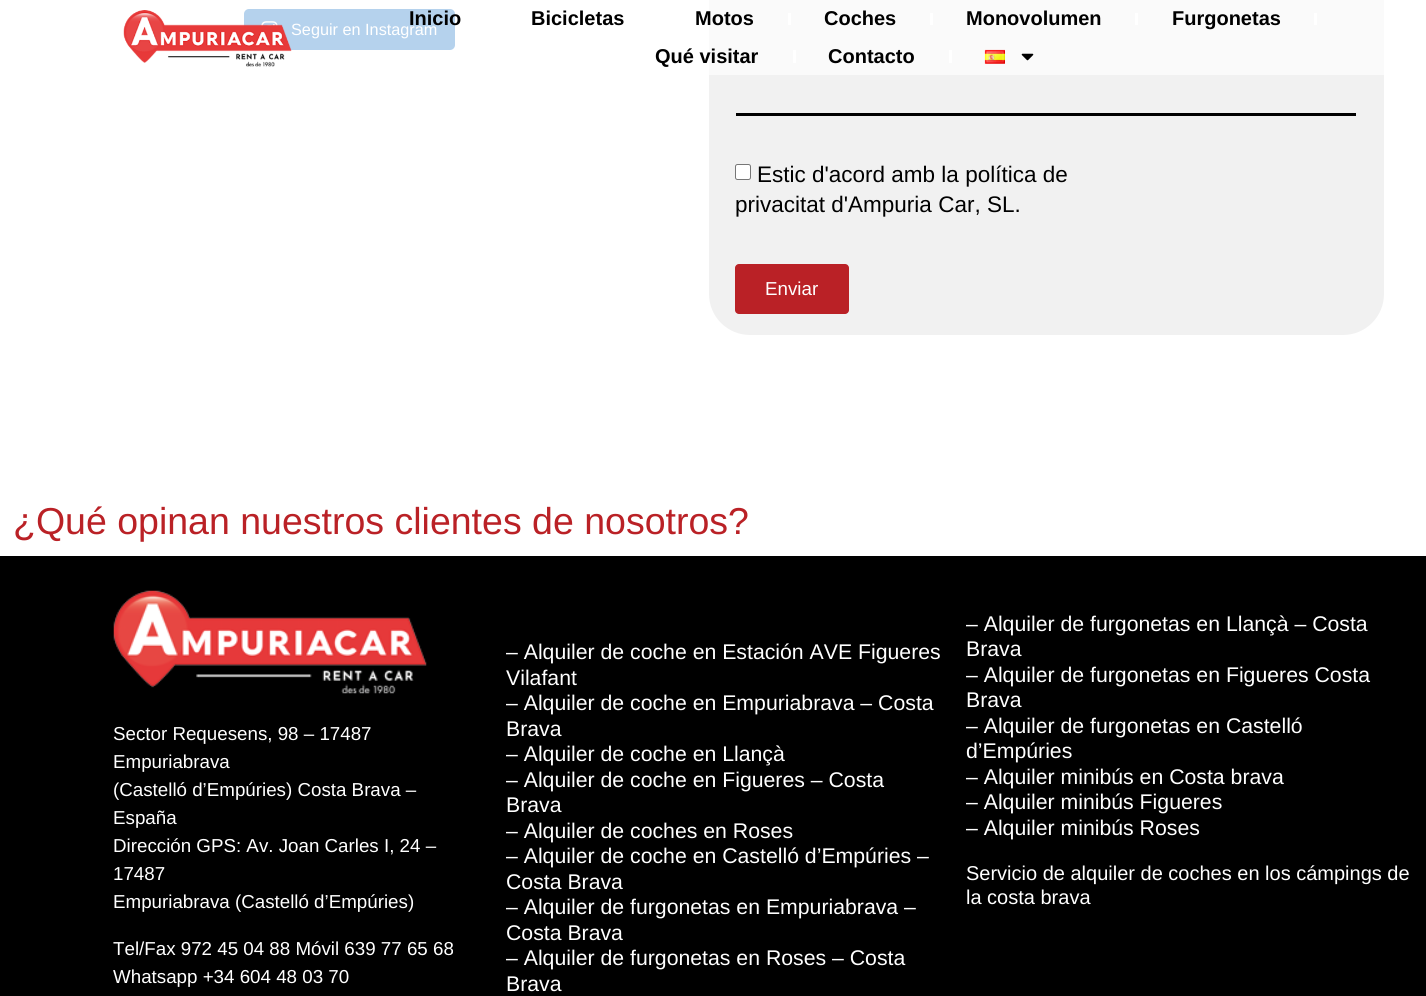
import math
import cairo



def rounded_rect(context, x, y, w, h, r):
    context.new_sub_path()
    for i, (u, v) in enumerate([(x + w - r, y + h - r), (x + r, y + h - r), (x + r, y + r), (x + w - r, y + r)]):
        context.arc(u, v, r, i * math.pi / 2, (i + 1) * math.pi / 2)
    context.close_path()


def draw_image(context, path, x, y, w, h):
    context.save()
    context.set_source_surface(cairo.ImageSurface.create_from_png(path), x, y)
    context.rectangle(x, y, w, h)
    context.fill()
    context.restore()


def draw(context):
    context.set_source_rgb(1, 1, 1)
    context.paint()
    context.set_source_rgb(241 / 255, 241 / 255, 241 / 255)
    rounded_rect(context, 709, -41, 675, 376, 41)
    context.fill()
    context.set_source_rgb(250 / 255, 250 / 255, 250 / 255)
    context.rectangle(709, 0, 675, 75)
    context.fill()
    context.set_source_rgb(1, 1, 1)
    context.rectangle(788, 13, 3, 12)
    context.fill()
    context.rectangle(930, 13, 3, 12)
    context.fill()
    context.rectangle(1135, 13, 3, 12)
    context.fill()
    context.rectangle(1314, 13, 3, 12)
    context.fill()
    context.rectangle(793, 50, 3, 13)
    context.fill()
    context.rectangle(949, 50, 3, 13)
    context.fill()
    draw_image(context, "images/2.png", 984, 49, 21, 15)
    draw_image(context, "images/3.png", 1021, 53, 13, 8)
    context.set_source_rgb(181 / 255, 210 / 255, 237 / 255)
    rounded_rect(context, 244, 9, 211, 41, 5)
    context.fill()
    draw_image(context, "images/4.png", 261, 21, 17, 5)
    context.set_source_rgb(0, 0, 0)
    context.rectangle(736, 113, 620, 3)
    context.fill()
    context.set_source_rgb(1, 1, 1)
    rounded_rect(context, 735.5, 164.5, 15, 15, 2)
    context.fill_preserve()
    context.set_source_rgb(118 / 255, 118 / 255, 118 / 255)
    context.set_line_width(1)
    context.stroke()
    context.set_source_rgb(186 / 255, 33 / 255, 38 / 255)
    rounded_rect(context, 735, 264, 114, 50, 4)
    context.fill()
    context.set_source_rgb(0, 0, 0)
    context.rectangle(0, 556, 1426, 440)
    context.fill()
    draw_image(context, "images/5.png", 113, 590, 314, 104)
    context.select_font_face("Liberation Sans", cairo.FontSlant.NORMAL, cairo.FontWeight.BOLD)
    context.set_font_size(20)
    context.move_to(409, 25)
    context.show_text("Inicio")
    context.move_to(531, 25)
    context.show_text("Bicicletas")
    context.move_to(695, 25)
    context.show_text("Motos")
    context.move_to(824, 25)
    context.show_text("Coches")
    context.move_to(966, 25)
    context.show_text("Monovolumen")
    context.move_to(1172, 25)
    context.show_text("Furgonetas")
    context.move_to(655, 63)
    context.show_text("Qué visitar")
    context.move_to(828, 63)
    context.show_text("Contacto")
    context.select_font_face("Liberation Sans")
    context.set_font_size(16.25)
    context.set_source_rgb(1, 1, 1)
    context.move_to(291, 35)
    context.show_text("Seguir en Instagram")
    draw_image(context, "images/1.png", 123, 10, 169, 57)
    context.set_font_size(22.5)
    context.set_source_rgb(0, 0, 0)
    context.move_to(757, 182)
    context.show_text("Estic d'acord amb la política de")
    context.move_to(735, 212)
    context.show_text("privacitat d'Ampuria Car, SL.")
    context.set_font_size(18.75)
    context.set_source_rgb(1, 1, 1)
    context.move_to(765, 295)
    context.show_text("Enviar")
    context.set_font_size(37.5)
    context.set_source_rgb(186 / 255, 33 / 255, 38 / 255)
    context.move_to(13, 534)
    context.show_text("¿Qué opinan nuestros clientes de nosotros?")
    context.set_font_size(18.75)
    context.set_source_rgb(1, 1, 1)
    context.move_to(113, 740)
    context.show_text("Sector Requesens, 98 – 17487")
    context.move_to(113, 768)
    context.show_text("Empuriabrava")
    context.move_to(113, 796)
    context.show_text("(Castelló d’Empúries) Costa Brava –")
    context.move_to(113, 824)
    context.show_text("España")
    context.move_to(113, 852)
    context.show_text("Dirección GPS: Av. Joan Carles I, 24 –")
    context.move_to(113, 880)
    context.show_text("17487")
    context.move_to(113, 908)
    context.show_text("Empuriabrava (Castelló d’Empúries)")
    context.move_to(113, 955)
    context.show_text("Tel/Fax 972 45 04 88 Móvil 639 77 65 68")
    context.move_to(113, 983)
    context.show_text("Whatsapp +34 604 48 03 70")
    context.set_font_size(21.25)
    context.move_to(506, 659)
    context.show_text("– Alquiler de coche en Estación AVE Figueres")
    context.move_to(506, 685)
    context.show_text("Vilafant")
    context.move_to(506, 710)
    context.show_text("– Alquiler de coche en Empuriabrava – Costa")
    context.move_to(506, 736)
    context.show_text("Brava")
    context.move_to(506, 761)
    context.show_text("– Alquiler de coche en Llançà")
    context.move_to(506, 787)
    context.show_text("– Alquiler de coche en Figueres – Costa")
    context.move_to(506, 812)
    context.show_text("Brava")
    context.move_to(506, 838)
    context.show_text("– Alquiler de coches en Roses")
    context.move_to(506, 863)
    context.show_text("– Alquiler de coche en Castelló d’Empúries –")
    context.move_to(506, 889)
    context.show_text("Costa Brava")
    context.move_to(506, 914)
    context.show_text("– Alquiler de furgonetas en Empuriabrava –")
    context.move_to(506, 940)
    context.show_text("Costa Brava")
    context.move_to(506, 965)
    context.show_text("– Alquiler de furgonetas en Roses – Costa")
    context.move_to(506, 991)
    context.show_text("Brava")
    context.move_to(966, 631)
    context.show_text("– Alquiler de furgonetas en Llançà – Costa")
    context.move_to(966, 656)
    context.show_text("Brava")
    context.move_to(966, 682)
    context.show_text("– Alquiler de furgonetas en Figueres Costa")
    context.move_to(966, 707)
    context.show_text("Brava")
    context.move_to(966, 733)
    context.show_text("– Alquiler de furgonetas en Castelló")
    context.move_to(966, 758)
    context.show_text("d’Empúries")
    context.move_to(966, 784)
    context.show_text("– Alquiler minibús en Costa brava")
    context.move_to(966, 809)
    context.show_text("– Alquiler minibús Figueres")
    context.move_to(966, 835)
    context.show_text("– Alquiler minibús Roses")
    context.set_font_size(20)
    context.move_to(966, 880)
    context.show_text("Servicio de alquiler de coches en los cámpings de")
    context.move_to(966, 904)
    context.show_text("la costa brava")


surface = cairo.ImageSurface(cairo.Format.RGB24, 1426, 996)
context = cairo.Context(surface)
options = cairo.FontOptions()
options.set_hint_metrics(cairo.HintMetrics.OFF)
options.set_hint_style(cairo.HintStyle.NONE)
context.set_font_options(options)
context.set_miter_limit(4)
draw(context)
surface.write_to_png("out.png")
